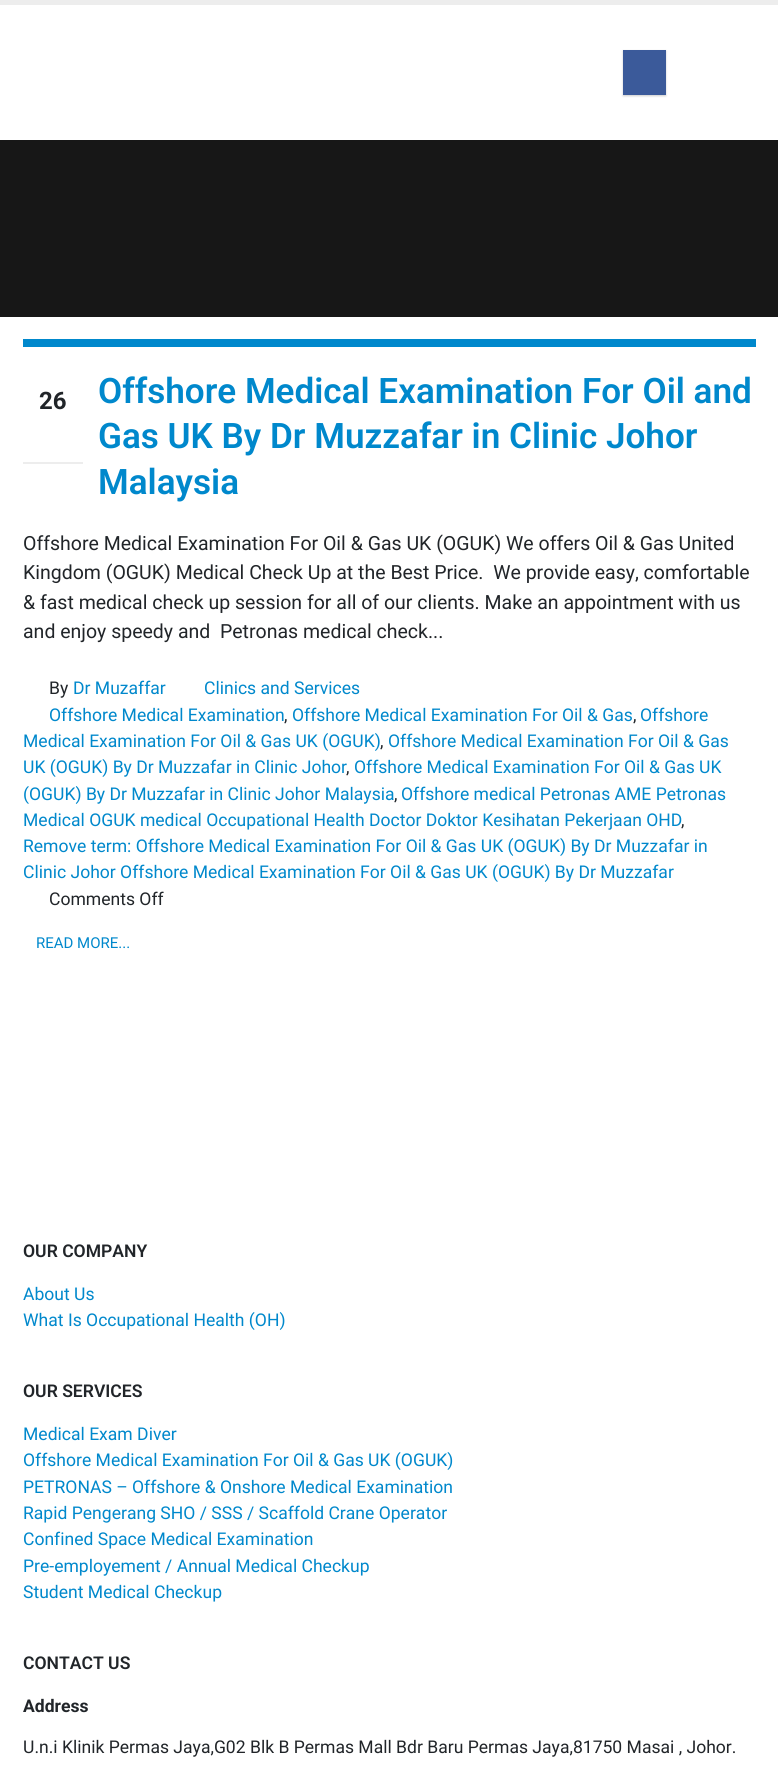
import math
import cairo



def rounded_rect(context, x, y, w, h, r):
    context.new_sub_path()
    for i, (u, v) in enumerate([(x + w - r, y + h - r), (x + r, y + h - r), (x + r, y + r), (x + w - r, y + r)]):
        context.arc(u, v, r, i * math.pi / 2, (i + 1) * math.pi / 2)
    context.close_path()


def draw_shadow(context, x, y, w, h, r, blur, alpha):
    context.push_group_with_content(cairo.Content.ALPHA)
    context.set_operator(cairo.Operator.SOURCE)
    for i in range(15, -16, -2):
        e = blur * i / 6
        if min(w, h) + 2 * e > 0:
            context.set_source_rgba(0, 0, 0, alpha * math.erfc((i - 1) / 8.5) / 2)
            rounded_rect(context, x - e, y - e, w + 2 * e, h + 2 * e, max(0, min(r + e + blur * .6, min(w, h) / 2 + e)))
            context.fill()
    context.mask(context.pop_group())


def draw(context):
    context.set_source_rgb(1, 1, 1)
    context.paint()
    context.set_source_rgb(237 / 255, 237 / 255, 237 / 255)
    context.rectangle(0, 0, 778, 5)
    context.fill()
    context.set_source_rgb(0, 0, 0)
    draw_shadow(context, 623, 51, 43, 45, 0, 1, 0.2)
    context.set_source_rgb(59 / 255, 90 / 255, 154 / 255)
    context.rectangle(623, 50, 43, 45)
    context.fill()
    context.set_source_rgb(23 / 255, 23 / 255, 23 / 255)
    context.rectangle(0, 140, 778, 177)
    context.fill()
    context.set_source_rgb(0, 136 / 255, 204 / 255)
    context.rectangle(23, 339, 733, 8)
    context.fill()
    context.set_source_rgb(237 / 255, 237 / 255, 237 / 255)
    context.rectangle(23, 462, 60, 2)
    context.fill()
    context.select_font_face("Roboto SemiBold")
    context.set_font_size(35.1)
    context.set_source_rgb(0, 136 / 255, 204 / 255)
    context.move_to(98, 403)
    context.show_text("Offshore Medical Examination For Oil and")
    context.move_to(98, 448)
    context.show_text("Gas UK By Dr Muzzafar in Clinic Johor")
    context.move_to(98, 494)
    context.show_text("Malaysia")
    context.select_font_face("Roboto")
    context.set_font_size(19.5)
    context.set_source_rgb(33 / 255, 37 / 255, 41 / 255)
    context.move_to(23, 550)
    context.show_text("Offshore Medical Examination For Oil & Gas UK (OGUK) We offers Oil & Gas United")
    context.move_to(23, 579)
    context.show_text("Kingdom (OGUK) Medical Check Up at the Best Price.  We provide easy, comfortable")
    context.move_to(23, 609)
    context.show_text("& fast medical check up session for all of our clients. Make an appointment with us")
    context.move_to(23, 638)
    context.show_text("and enjoy speedy and  Petronas medical check...")
    context.select_font_face("Roboto", cairo.FontSlant.NORMAL, cairo.FontWeight.BOLD)
    context.set_font_size(24)
    context.move_to(39, 409)
    context.show_text("26")
    context.select_font_face("Roboto")
    context.set_font_size(17.55)
    context.move_to(49, 694)
    context.show_text("By")
    context.set_source_rgb(0, 136 / 255, 204 / 255)
    context.move_to(73, 694)
    context.show_text("Dr Muzaffar")
    context.move_to(204, 694)
    context.show_text("Clinics and Services")
    context.move_to(49, 721)
    context.show_text("Offshore Medical Examination")
    context.set_source_rgb(33 / 255, 37 / 255, 41 / 255)
    context.move_to(284, 721)
    context.show_text(",")
    context.set_source_rgb(0, 136 / 255, 204 / 255)
    context.move_to(292, 721)
    context.show_text("Offshore Medical Examination For Oil & Gas")
    context.set_source_rgb(33 / 255, 37 / 255, 41 / 255)
    context.move_to(633, 721)
    context.show_text(",")
    context.set_source_rgb(0, 136 / 255, 204 / 255)
    context.move_to(640, 721)
    context.show_text("Offshore")
    context.move_to(23, 747)
    context.show_text("Medical Examination For Oil & Gas UK (OGUK)")
    context.set_source_rgb(33 / 255, 37 / 255, 41 / 255)
    context.move_to(380, 747)
    context.show_text(",")
    context.set_source_rgb(0, 136 / 255, 204 / 255)
    context.move_to(388, 747)
    context.show_text("Offshore Medical Examination For Oil & Gas")
    context.move_to(23, 773)
    context.show_text("UK (OGUK) By Dr Muzzafar in Clinic Johor")
    context.set_source_rgb(33 / 255, 37 / 255, 41 / 255)
    context.move_to(346, 773)
    context.show_text(",")
    context.set_source_rgb(0, 136 / 255, 204 / 255)
    context.move_to(354, 773)
    context.show_text("Offshore Medical Examination For Oil & Gas UK")
    context.move_to(23, 800)
    context.show_text("(OGUK) By Dr Muzzafar in Clinic Johor Malaysia")
    context.set_source_rgb(33 / 255, 37 / 255, 41 / 255)
    context.move_to(394, 800)
    context.show_text(",")
    context.set_source_rgb(0, 136 / 255, 204 / 255)
    context.move_to(401, 800)
    context.show_text("Offshore medical Petronas AME Petronas")
    context.move_to(23, 826)
    context.show_text("Medical OGUK medical Occupational Health Doctor Doktor Kesihatan Pekerjaan OHD")
    context.set_source_rgb(33 / 255, 37 / 255, 41 / 255)
    context.move_to(681, 826)
    context.show_text(",")
    context.set_source_rgb(0, 136 / 255, 204 / 255)
    context.move_to(23, 852)
    context.show_text("Remove term: Offshore Medical Examination For Oil & Gas UK (OGUK) By Dr Muzzafar in")
    context.move_to(23, 878)
    context.show_text("Clinic Johor Offshore Medical Examination For Oil & Gas UK (OGUK) By Dr Muzzafar")
    context.set_source_rgb(33 / 255, 37 / 255, 41 / 255)
    context.move_to(49, 905)
    context.show_text("Comments Off")
    context.set_font_size(15)
    context.set_source_rgb(0, 136 / 255, 204 / 255)
    context.move_to(36, 948)
    context.show_text("READ MORE...")
    context.select_font_face("Roboto SemiBold")
    context.set_font_size(17.55)
    context.set_source_rgb(33 / 255, 37 / 255, 41 / 255)
    context.move_to(23, 1257)
    context.show_text("OUR COMPANY")
    context.select_font_face("Roboto")
    context.set_source_rgb(0, 136 / 255, 204 / 255)
    context.move_to(23, 1300)
    context.show_text("About Us")
    context.move_to(23, 1326)
    context.show_text("What Is Occupational Health (OH)")
    context.select_font_face("Roboto SemiBold")
    context.set_source_rgb(33 / 255, 37 / 255, 41 / 255)
    context.move_to(23, 1397)
    context.show_text("OUR SERVICES")
    context.select_font_face("Roboto")
    context.set_source_rgb(0, 136 / 255, 204 / 255)
    context.move_to(23, 1440)
    context.show_text("Medical Exam Diver")
    context.move_to(23, 1466)
    context.show_text("Offshore Medical Examination For Oil & Gas UK (OGUK)")
    context.move_to(23, 1493)
    context.show_text("PETRONAS – Offshore & Onshore Medical Examination")
    context.move_to(23, 1519)
    context.show_text("Rapid Pengerang SHO / SSS / Scaffold Crane Operator")
    context.move_to(23, 1545)
    context.show_text("Confined Space Medical Examination")
    context.move_to(23, 1572)
    context.show_text("Pre-employement / Annual Medical Checkup")
    context.move_to(23, 1598)
    context.show_text("Student Medical Checkup")
    context.select_font_face("Roboto SemiBold")
    context.set_source_rgb(33 / 255, 37 / 255, 41 / 255)
    context.move_to(23, 1669)
    context.show_text("CONTACT US")
    context.select_font_face("Roboto", cairo.FontSlant.NORMAL, cairo.FontWeight.BOLD)
    context.move_to(23, 1712)
    context.show_text("Address")
    context.select_font_face("Roboto")
    context.move_to(23, 1753)
    context.show_text("U.n.i Klinik Permas Jaya,G02 Blk B Permas Mall Bdr Baru Permas Jaya,81750 Masai , Johor.")


surface = cairo.ImageSurface(cairo.Format.RGB24, 778, 1789)
context = cairo.Context(surface)
options = cairo.FontOptions()
options.set_hint_metrics(cairo.HintMetrics.OFF)
options.set_hint_style(cairo.HintStyle.NONE)
context.set_font_options(options)
context.set_miter_limit(4)
draw(context)
surface.write_to_png("out.png")
